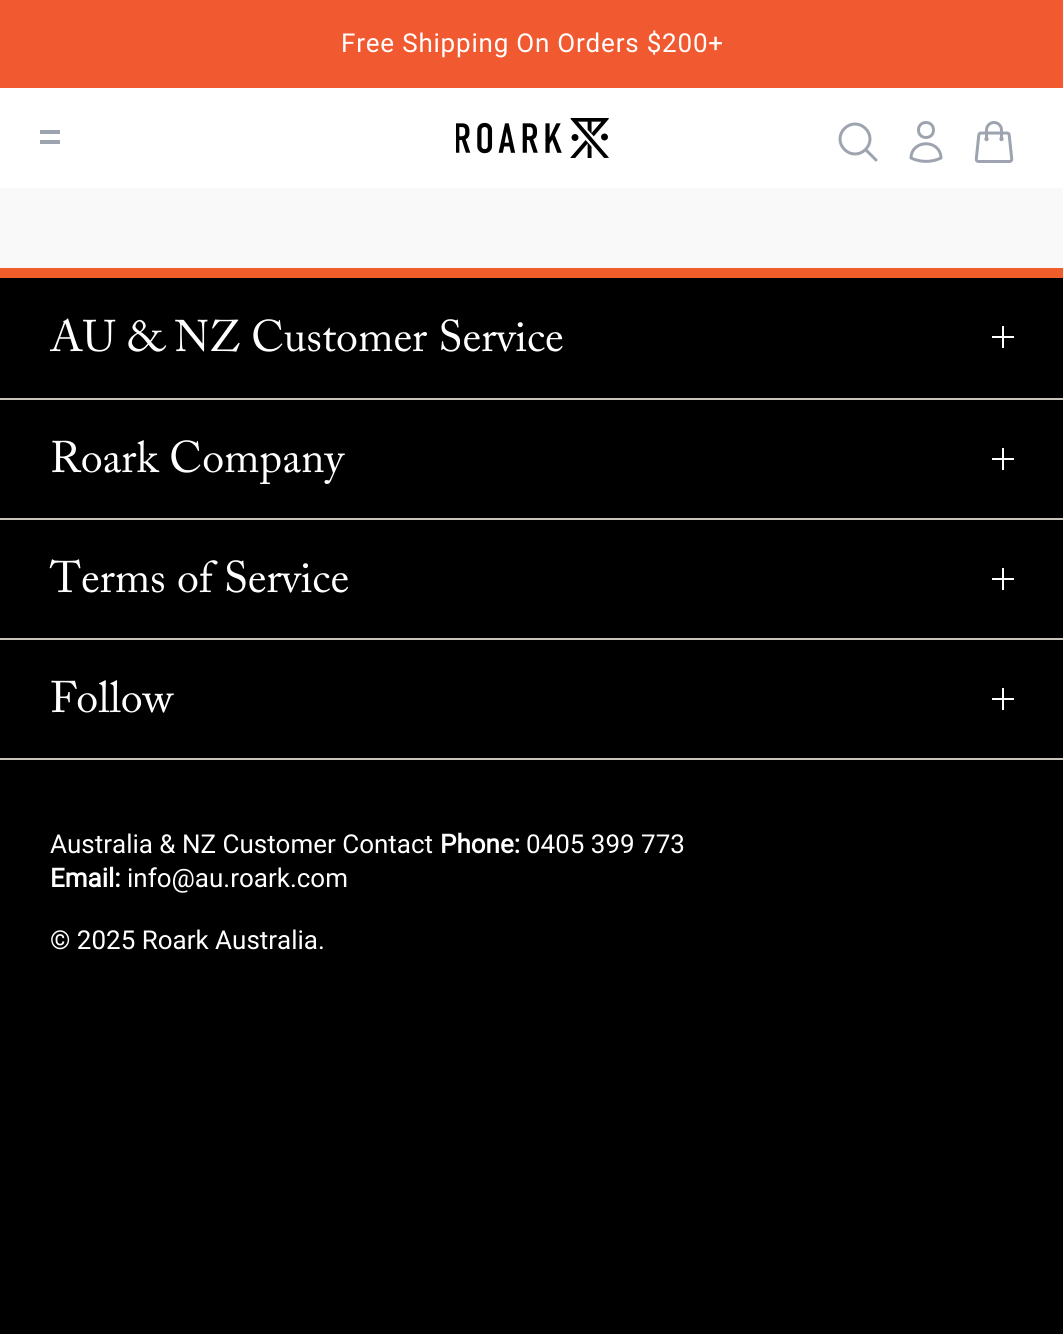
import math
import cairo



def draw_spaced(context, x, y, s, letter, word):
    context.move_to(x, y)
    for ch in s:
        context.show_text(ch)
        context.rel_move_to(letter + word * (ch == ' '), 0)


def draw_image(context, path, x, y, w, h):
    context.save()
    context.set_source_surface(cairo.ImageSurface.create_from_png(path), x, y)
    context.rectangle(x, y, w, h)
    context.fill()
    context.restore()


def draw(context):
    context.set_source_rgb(0, 0, 0)
    context.paint()
    context.set_source_rgb(1, 1, 1)
    context.rectangle(0, 88, 1063, 100)
    context.fill()
    context.set_source_rgb(241 / 255, 90 / 255, 49 / 255)
    context.rectangle(0, 0, 1063, 88)
    context.fill()
    context.set_source_rgb(158 / 255, 164 / 255, 175 / 255)
    context.rectangle(40, 130, 20, 4)
    context.fill()
    context.rectangle(40, 140, 20, 4)
    context.fill()
    draw_image(context, "images/1.png", 456, 118, 153, 40)
    context.new_path()
    context.move_to(876, 160)
    context.line_to(865.5, 149.5)
    context.move_to(865.5, 149.5)
    context.curve_to(871.5, 143.5, 871.5, 134.5, 865.5, 128.5)
    context.curve_to(859.5, 122.5, 850.5, 122.5, 844.5, 128.5)
    context.curve_to(838.5, 134.5, 838.5, 143.5, 844.5, 149.5)
    context.curve_to(850.5, 155.5, 859.5, 155.5, 865.5, 149.5)
    context.close_path()
    context.set_line_width(3)
    context.set_line_cap(cairo.LineCap.ROUND)
    context.set_line_join(cairo.LineJoin.ROUND)
    context.stroke()
    context.new_path()
    context.move_to(933.5, 130)
    context.curve_to(933.5, 140, 918.5, 140, 918.5, 130)
    context.curve_to(918.5, 120, 933.5, 120, 933.5, 130)
    context.close_path()
    context.move_to(911, 158)
    context.curve_to(911.5, 139, 940.5, 139, 941, 158)
    context.curve_to(931.5, 162.5, 920.5, 162.5, 911, 158)
    context.close_path()
    context.stroke()
    draw_image(context, "images/2.png", 974, 121, 40, 42)
    context.set_source_rgb(249 / 255, 249 / 255, 249 / 255)
    context.rectangle(0, 188, 1063, 80)
    context.fill()
    context.set_source_rgb(241 / 255, 93 / 255, 42 / 255)
    context.rectangle(0, 268, 1063, 10)
    context.fill()
    context.set_source_rgb(200 / 255, 196 / 255, 186 / 255)
    context.rectangle(0, 758, 1063, 2)
    context.fill()
    draw_image(context, "images/3.png", 992, 326, 22, 22)
    context.rectangle(0, 398, 1063, 2)
    context.fill()
    draw_image(context, "images/3.png", 992, 448, 22, 22)
    context.rectangle(0, 518, 1063, 2)
    context.fill()
    draw_image(context, "images/3.png", 992, 568, 22, 22)
    context.rectangle(0, 638, 1063, 2)
    context.fill()
    draw_image(context, "images/3.png", 992, 688, 22, 22)
    context.select_font_face("Roboto")
    context.set_font_size(26)
    context.set_source_rgb(1, 1, 1)
    draw_spaced(context, 341, 52, "Free Shipping On Orders $200+", 0.8, 0)
    context.select_font_face("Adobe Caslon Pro")
    context.set_font_size(44)
    context.move_to(50, 351)
    context.show_text("AU & NZ Customer Service")
    context.move_to(50, 472)
    context.show_text("Roark Company")
    context.move_to(50, 592)
    context.show_text("Terms of Service")
    context.move_to(50, 712)
    context.show_text("Follow")
    context.select_font_face("Roboto")
    context.set_font_size(26)
    context.move_to(50, 853)
    context.show_text("Australia & NZ Customer Contact")
    context.select_font_face("Roboto", cairo.FontSlant.NORMAL, cairo.FontWeight.BOLD)
    context.move_to(440, 853)
    context.show_text("Phone:")
    context.select_font_face("Roboto")
    context.move_to(526, 853)
    context.show_text("0405 399 773")
    context.select_font_face("Roboto", cairo.FontSlant.NORMAL, cairo.FontWeight.BOLD)
    context.move_to(50, 887)
    context.show_text("Email:")
    context.select_font_face("Roboto")
    context.move_to(127, 887)
    context.show_text("info@au.roark.com")
    context.move_to(50, 949)
    context.show_text("© 2025 Roark Australia.")


surface = cairo.ImageSurface(cairo.Format.RGB24, 1063, 1334)
context = cairo.Context(surface)
options = cairo.FontOptions()
options.set_hint_metrics(cairo.HintMetrics.OFF)
options.set_hint_style(cairo.HintStyle.NONE)
context.set_font_options(options)
context.set_miter_limit(4)
draw(context)
surface.write_to_png("out.png")
